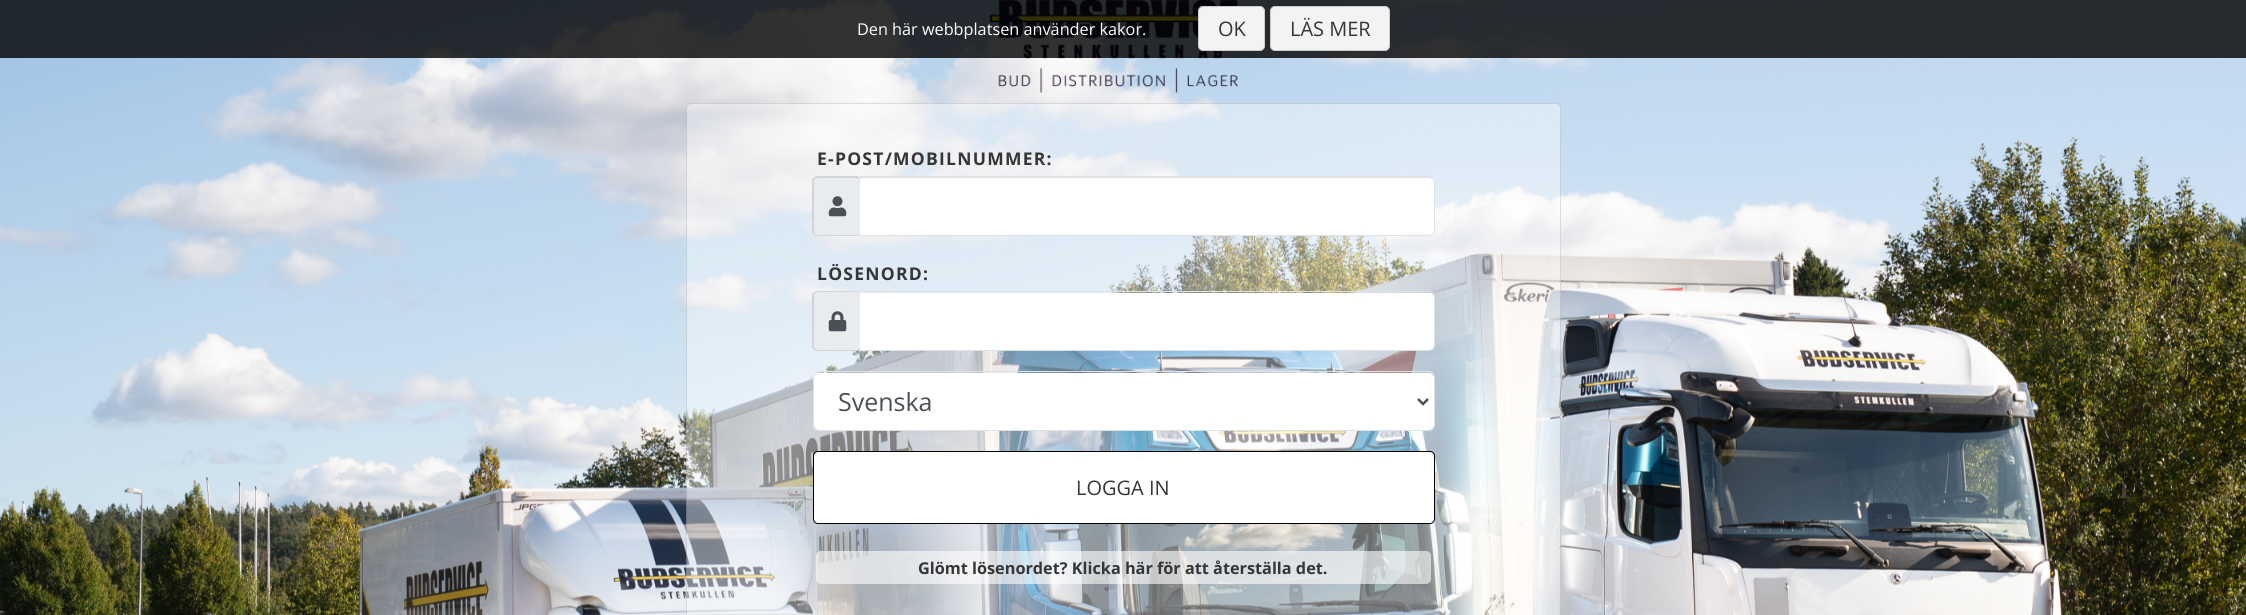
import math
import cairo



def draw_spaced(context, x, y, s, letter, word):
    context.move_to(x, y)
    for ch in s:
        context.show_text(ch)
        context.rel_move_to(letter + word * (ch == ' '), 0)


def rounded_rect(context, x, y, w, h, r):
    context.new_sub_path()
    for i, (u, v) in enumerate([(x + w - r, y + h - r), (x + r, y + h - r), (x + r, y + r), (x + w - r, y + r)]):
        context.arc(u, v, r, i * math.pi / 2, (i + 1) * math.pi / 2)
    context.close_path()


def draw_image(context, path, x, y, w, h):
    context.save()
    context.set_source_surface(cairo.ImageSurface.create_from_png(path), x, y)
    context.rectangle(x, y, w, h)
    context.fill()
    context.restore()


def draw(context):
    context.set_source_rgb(1, 1, 1)
    context.paint()
    draw_image(context, "images/1.png", 0, 0, 2246, 615)
    draw_image(context, "images/2.png", 990, 0, 248, 93)
    context.set_source_rgba(0, 0, 0, 0.8)
    context.rectangle(0, 0, 2246, 58)
    context.fill()
    context.set_source_rgb(243 / 255, 243 / 255, 244 / 255)
    rounded_rect(context, 1198.5, 6.5, 66, 44, 4.5)
    context.fill_preserve()
    context.set_source_rgb(204 / 255, 204 / 255, 204 / 255)
    context.set_line_width(1)
    context.stroke()
    context.set_source_rgb(243 / 255, 243 / 255, 244 / 255)
    rounded_rect(context, 1270.5, 6.5, 119, 44, 4.5)
    context.fill_preserve()
    context.set_source_rgb(204 / 255, 204 / 255, 204 / 255)
    context.stroke()
    context.set_source_rgba(1, 1, 1, 0.4)
    rounded_rect(context, 686, 103, 875, 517, 5)
    context.fill()
    rounded_rect(context, 686.5, 103.5, 874, 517, 4.5)
    context.set_source_rgba(0, 0, 0, 0.12)
    context.stroke()
    context.set_source_rgb(233 / 255, 236 / 255, 239 / 255)
    rounded_rect(context, 813, 176, 48, 60, 5)
    context.fill()
    context.set_source_rgb(206 / 255, 212 / 255, 218 / 255)
    context.set_fill_rule(cairo.FillRule.EVEN_ODD)
    context.new_path()
    context.move_to(818, 176)
    context.line_to(856, 176)
    context.curve_to(859, 176, 861, 178, 861, 181)
    context.line_to(861, 231)
    context.curve_to(861, 234, 859, 236, 856, 236)
    context.line_to(818, 236)
    context.curve_to(815, 236, 812, 234, 812, 231)
    context.line_to(812, 181)
    context.curve_to(812, 178, 815, 176, 818, 176)
    context.close_path()
    context.move_to(818, 178)
    context.line_to(856, 178)
    context.curve_to(859, 178, 861, 179, 861, 181)
    context.line_to(861, 231)
    context.curve_to(861, 233, 859, 235, 856, 235)
    context.line_to(818, 235)
    context.curve_to(815, 235, 814, 233, 814, 231)
    context.line_to(814, 181)
    context.curve_to(814, 179, 815, 178, 818, 178)
    context.close_path()
    context.fill()
    draw_image(context, "images/3.png", 828, 196, 19, 21)
    context.set_source_rgb(1, 1, 1)
    context.new_path()
    context.move_to(860, 178)
    context.line_to(1429, 178)
    context.curve_to(1432, 178, 1434, 180, 1434, 183)
    context.line_to(1434, 230)
    context.curve_to(1434, 233, 1432, 235, 1429, 235)
    context.line_to(860, 235)
    context.close_path()
    context.fill()
    context.set_source_rgb(222 / 255, 226 / 255, 230 / 255)
    context.new_path()
    context.move_to(860, 176)
    context.line_to(1429, 176)
    context.curve_to(1432, 176, 1435, 179, 1435, 182)
    context.line_to(1435, 230)
    context.curve_to(1435, 234, 1432, 236, 1429, 236)
    context.line_to(860, 236)
    context.close_path()
    context.move_to(860, 178)
    context.line_to(1429, 178)
    context.curve_to(1432, 178, 1434, 180, 1434, 182)
    context.line_to(1434, 230)
    context.curve_to(1434, 233, 1432, 235, 1429, 235)
    context.line_to(860, 235)
    context.close_path()
    context.fill()
    context.set_source_rgb(233 / 255, 236 / 255, 239 / 255)
    rounded_rect(context, 813, 291, 48, 60, 5)
    context.fill()
    context.set_source_rgb(206 / 255, 212 / 255, 218 / 255)
    context.new_path()
    context.move_to(818, 291)
    context.line_to(856, 291)
    context.curve_to(859, 291, 861, 293, 861, 296)
    context.line_to(861, 346)
    context.curve_to(861, 349, 859, 351, 856, 351)
    context.line_to(818, 351)
    context.curve_to(815, 351, 812, 349, 812, 346)
    context.line_to(812, 296)
    context.curve_to(812, 293, 815, 291, 818, 291)
    context.close_path()
    context.move_to(818, 292)
    context.line_to(856, 292)
    context.curve_to(859, 292, 861, 294, 861, 296)
    context.line_to(861, 346)
    context.curve_to(861, 348, 859, 350, 856, 350)
    context.line_to(818, 350)
    context.curve_to(815, 350, 814, 348, 814, 346)
    context.line_to(814, 296)
    context.curve_to(814, 294, 815, 292, 818, 292)
    context.close_path()
    context.fill()
    draw_image(context, "images/4.png", 828, 311, 19, 21)
    context.set_source_rgb(1, 1, 1)
    context.new_path()
    context.move_to(860, 293)
    context.line_to(1429, 293)
    context.curve_to(1432, 293, 1434, 295, 1434, 298)
    context.line_to(1434, 345)
    context.curve_to(1434, 348, 1432, 350, 1429, 350)
    context.line_to(860, 350)
    context.close_path()
    context.fill()
    context.set_source_rgb(222 / 255, 226 / 255, 230 / 255)
    context.new_path()
    context.move_to(860, 291)
    context.line_to(1429, 291)
    context.curve_to(1432, 291, 1435, 294, 1435, 297)
    context.line_to(1435, 345)
    context.curve_to(1435, 349, 1432, 351, 1429, 351)
    context.line_to(860, 351)
    context.close_path()
    context.move_to(860, 292)
    context.line_to(1429, 292)
    context.curve_to(1432, 292, 1434, 295, 1434, 297)
    context.line_to(1434, 345)
    context.curve_to(1434, 348, 1432, 350, 1429, 350)
    context.line_to(860, 350)
    context.close_path()
    context.fill()
    context.set_source_rgb(1, 1, 1)
    rounded_rect(context, 814, 373, 620, 57, 5)
    context.fill()
    rounded_rect(context, 813.5, 371.5, 621, 59, 5.5)
    context.set_source_rgb(222 / 255, 226 / 255, 230 / 255)
    context.stroke()
    context.new_path()
    context.move_to(1418, 399)
    context.line_to(1423, 404)
    context.line_to(1428, 399)
    context.set_source_rgb(73 / 255, 80 / 255, 87 / 255)
    context.set_line_width(2.5)
    context.stroke()
    context.set_source_rgb(1, 1, 1)
    rounded_rect(context, 813.5, 451.5, 621, 72, 4.5)
    context.fill_preserve()
    context.set_source_rgb(0, 0, 0)
    context.set_line_width(1)
    context.stroke()
    context.set_source_rgba(1, 1, 1, 0.6)
    rounded_rect(context, 816, 551, 615, 33, 5)
    context.fill()
    context.select_font_face("Open Sans")
    context.set_font_size(16.25)
    context.set_source_rgb(1, 1, 1)
    context.move_to(857, 35)
    context.show_text("Den här webbplatsen använder kakor.")
    context.set_font_size(20)
    context.set_source_rgb(54 / 255, 54 / 255, 54 / 255)
    context.move_to(1218, 36)
    context.show_text("OK")
    context.move_to(1290, 36)
    context.show_text("LÄS MER")
    context.select_font_face("Open Sans", cairo.FontSlant.NORMAL, cairo.FontWeight.BOLD)
    context.set_font_size(17.5)
    draw_spaced(context, 817, 165, "E-POST/MOBILNUMMER:", 1.25, 0)
    draw_spaced(context, 817, 280, "LÖSENORD:", 1.25, 0)
    context.select_font_face("Open Sans")
    context.set_font_size(25)
    context.set_source_rgb(73 / 255, 80 / 255, 87 / 255)
    context.move_to(838, 411)
    context.show_text("Svenska")
    context.set_font_size(20)
    context.set_source_rgb(54 / 255, 54 / 255, 54 / 255)
    context.move_to(1076, 495)
    context.show_text("LOGGA IN")
    context.select_font_face("Open Sans", cairo.FontSlant.NORMAL, cairo.FontWeight.BOLD)
    context.set_font_size(16.25)
    context.move_to(918, 574)
    context.show_text("Glömt lösenordet? Klicka här för att återställa det.")


surface = cairo.ImageSurface(cairo.Format.RGB24, 2246, 615)
context = cairo.Context(surface)
options = cairo.FontOptions()
options.set_hint_metrics(cairo.HintMetrics.OFF)
options.set_hint_style(cairo.HintStyle.NONE)
context.set_font_options(options)
context.set_miter_limit(4)
draw(context)
surface.write_to_png("out.png")
